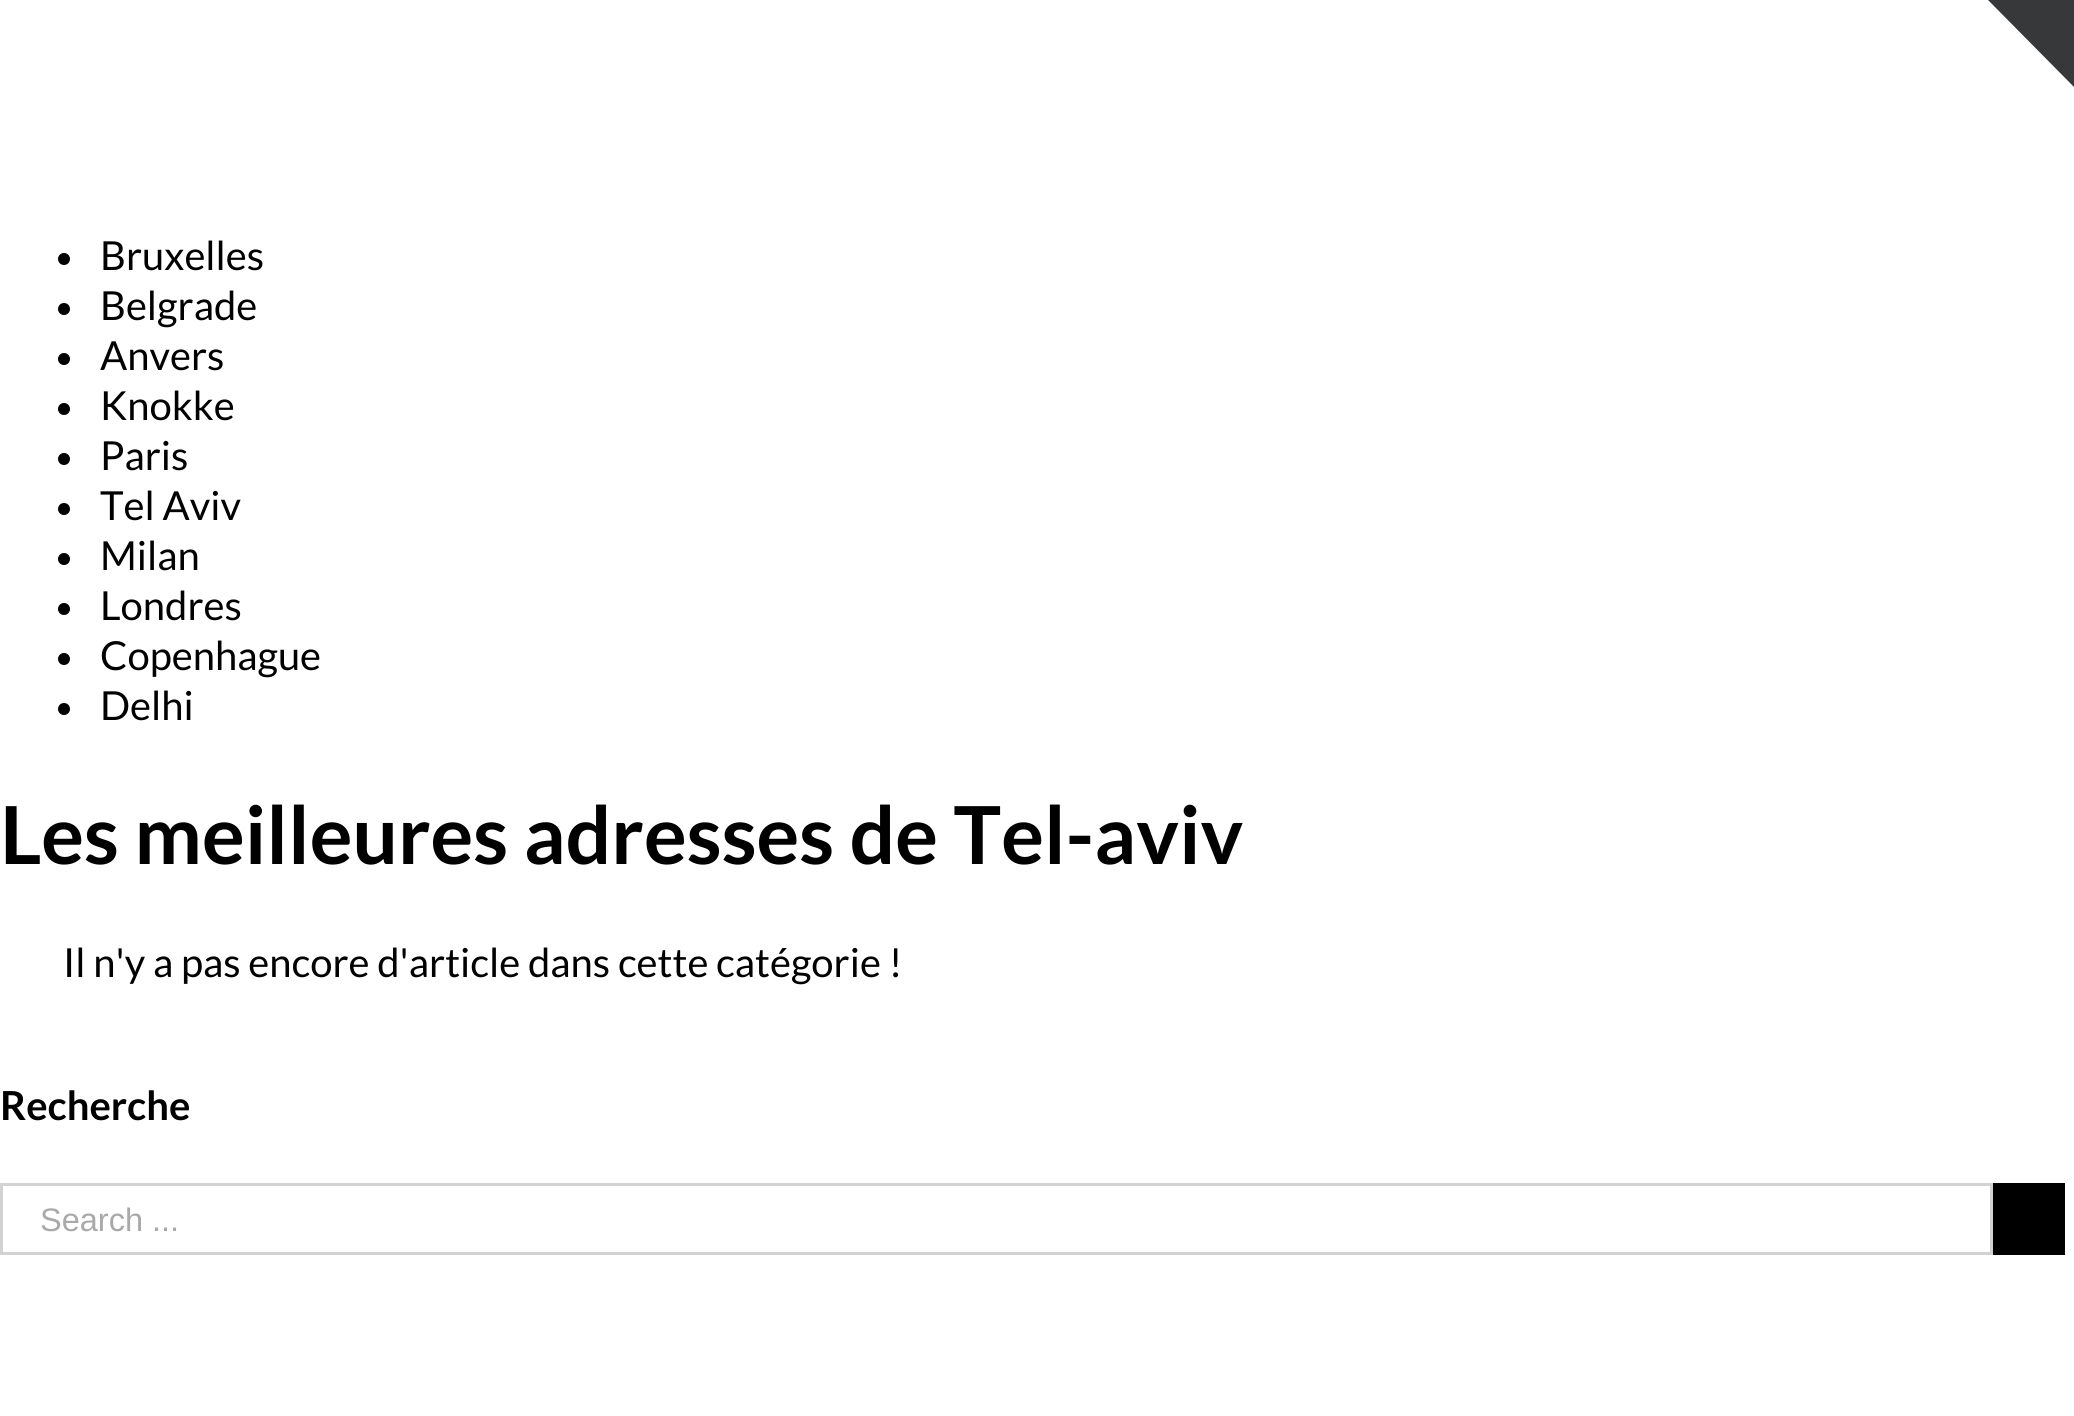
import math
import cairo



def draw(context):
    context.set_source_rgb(1, 1, 1)
    context.paint()
    context.set_source_rgb(54 / 255, 56 / 255, 57 / 255)
    context.new_path()
    context.move_to(1988, 0)
    context.line_to(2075, 0)
    context.line_to(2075, 88)
    context.close_path()
    context.fill()
    context.set_source_rgb(0, 0, 0)
    context.arc(64, 259, 6, 0, 2 * math.pi)
    context.fill()
    context.arc(64, 309, 6, 0, 2 * math.pi)
    context.fill()
    context.arc(64, 359, 6, 0, 2 * math.pi)
    context.fill()
    context.arc(64, 409, 6, 0, 2 * math.pi)
    context.fill()
    context.arc(64, 459, 6, 0, 2 * math.pi)
    context.fill()
    context.arc(64, 509, 6, 0, 2 * math.pi)
    context.fill()
    context.arc(64, 559, 6, 0, 2 * math.pi)
    context.fill()
    context.arc(64, 609, 6, 0, 2 * math.pi)
    context.fill()
    context.arc(64, 659, 6, 0, 2 * math.pi)
    context.fill()
    context.arc(64, 709, 6, 0, 2 * math.pi)
    context.fill()
    context.rectangle(1.5, 1184.5, 1990, 69)
    context.set_source_rgb(210 / 255, 210 / 255, 210 / 255)
    context.set_line_width(3)
    context.stroke()
    context.set_source_rgb(0, 0, 0)
    context.rectangle(1993, 1183, 72, 72)
    context.fill()
    context.select_font_face("Lato")
    context.set_font_size(40)
    context.move_to(100, 270)
    context.show_text("Bruxelles")
    context.move_to(100, 320)
    context.show_text("Belgrade")
    context.move_to(100, 370)
    context.show_text("Anvers")
    context.move_to(100, 420)
    context.show_text("Knokke")
    context.move_to(100, 470)
    context.show_text("Paris")
    context.move_to(100, 520)
    context.show_text("Tel Aviv")
    context.move_to(100, 570)
    context.show_text("Milan")
    context.move_to(100, 620)
    context.show_text("Londres")
    context.move_to(100, 670)
    context.show_text("Copenhague")
    context.move_to(100, 720)
    context.show_text("Delhi")
    context.select_font_face("Lato", cairo.FontSlant.NORMAL, cairo.FontWeight.BOLD)
    context.set_font_size(80)
    context.move_to(0, 864)
    context.show_text("Les meilleures adresses de Tel-aviv")
    context.select_font_face("Lato")
    context.set_font_size(40)
    context.move_to(63, 977)
    context.show_text("Il n'y a pas encore d'article dans cette catégorie !")
    context.select_font_face("Lato", cairo.FontSlant.NORMAL, cairo.FontWeight.BOLD)
    context.move_to(0, 1120)
    context.show_text("Recherche")
    context.select_font_face("Liberation Sans")
    context.set_font_size(32.5)
    context.set_source_rgb(170 / 255, 169 / 255, 169 / 255)
    context.move_to(40, 1231)
    context.show_text("Search ...")


surface = cairo.ImageSurface(cairo.Format.RGB24, 2074, 1416)
context = cairo.Context(surface)
options = cairo.FontOptions()
options.set_hint_metrics(cairo.HintMetrics.OFF)
options.set_hint_style(cairo.HintStyle.NONE)
context.set_font_options(options)
context.set_miter_limit(4)
draw(context)
surface.write_to_png("out.png")
